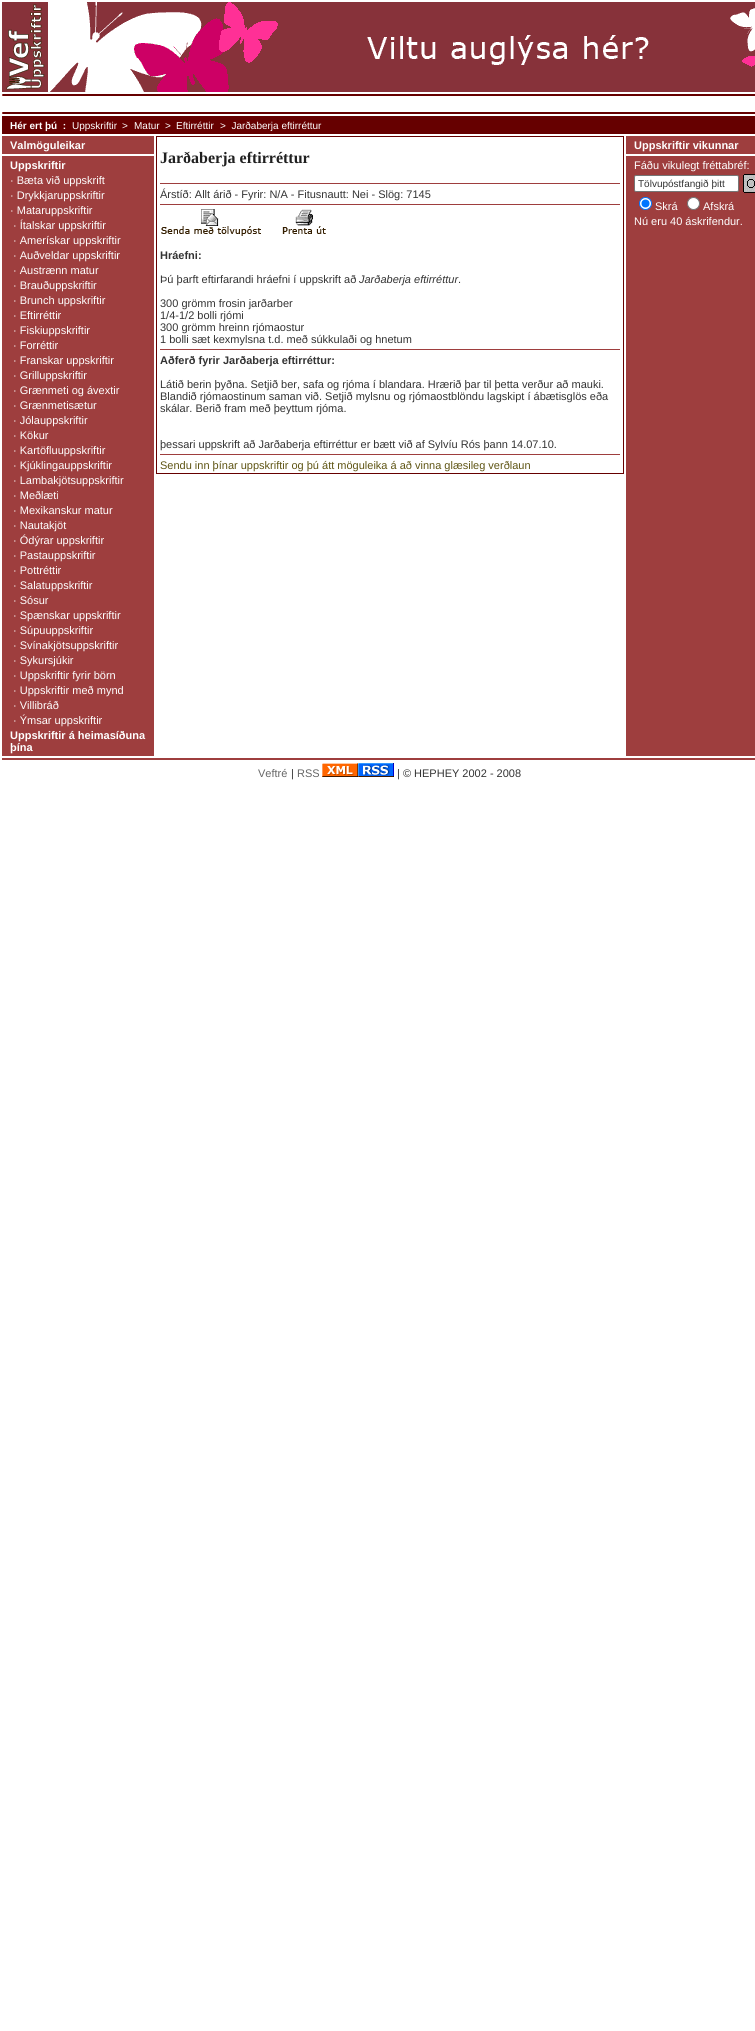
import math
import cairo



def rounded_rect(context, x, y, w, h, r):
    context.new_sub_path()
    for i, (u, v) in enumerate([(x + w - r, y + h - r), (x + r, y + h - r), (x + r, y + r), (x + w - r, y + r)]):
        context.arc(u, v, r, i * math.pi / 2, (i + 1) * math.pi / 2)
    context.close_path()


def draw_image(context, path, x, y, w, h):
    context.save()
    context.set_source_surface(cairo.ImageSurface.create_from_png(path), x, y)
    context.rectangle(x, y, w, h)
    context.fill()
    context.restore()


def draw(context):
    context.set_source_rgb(1, 1, 1)
    context.paint()
    draw_image(context, "images/1.png", 2, 2, 46, 90)
    draw_image(context, "images/2.png", 50, 2, 705, 90)
    context.set_source_rgb(102 / 255, 0, 0)
    context.rectangle(3, 94, 752, 20)
    context.fill()
    context.set_source_rgb(158 / 255, 62 / 255, 62 / 255)
    context.rectangle(2, 94, 1, 2)
    context.fill()
    context.set_source_rgb(1, 1, 1)
    context.rectangle(3, 96, 752, 16)
    context.fill()
    context.set_source_rgb(158 / 255, 62 / 255, 62 / 255)
    context.rectangle(2, 112, 1, 2)
    context.fill()
    context.set_source_rgb(102 / 255, 0, 0)
    context.rectangle(2, 116, 753, 18)
    context.fill()
    draw_image(context, "images/3.png", 2, 136, 753, 620)
    context.set_source_rgb(1, 1, 1)
    context.rectangle(2, 154, 152, 2)
    context.fill()
    context.rectangle(156.5, 136.5, 467, 337)
    context.set_source_rgb(102 / 255, 0, 0)
    context.set_line_width(1)
    context.stroke()
    context.set_source_rgb(158 / 255, 62 / 255, 62 / 255)
    context.rectangle(160, 183, 460, 1)
    context.fill()
    context.rectangle(160, 204, 460, 1)
    context.fill()
    draw_image(context, "images/4.png", 161, 209, 100, 27)
    draw_image(context, "images/5.png", 282, 209, 44, 25)
    context.rectangle(160, 349, 460, 1)
    context.fill()
    context.rectangle(160, 454, 460, 1)
    context.fill()
    context.set_source_rgb(1, 1, 1)
    context.rectangle(626, 154, 129, 2)
    context.fill()
    rounded_rect(context, 634.5, 175.5, 104, 16, 1.5)
    context.fill_preserve()
    context.set_source_rgb(118 / 255, 118 / 255, 118 / 255)
    context.stroke()
    draw_image(context, "images/6.png", 743, 174, 12, 19)
    context.set_source_rgb(1, 1, 1)
    context.arc(645.5, 203.5, 6, 0, 2 * math.pi)
    context.fill_preserve()
    context.set_source_rgb(0, 117 / 255, 1)
    context.stroke()
    context.arc(645.5, 203.5, 4, 0, 2 * math.pi)
    context.fill()
    context.set_source_rgb(1, 1, 1)
    context.arc(693.5, 203.5, 6, 0, 2 * math.pi)
    context.fill_preserve()
    context.set_source_rgb(118 / 255, 118 / 255, 118 / 255)
    context.stroke()
    context.set_source_rgb(158 / 255, 62 / 255, 62 / 255)
    context.rectangle(2, 758, 753, 2)
    context.fill()
    draw_image(context, "images/7.png", 322, 763, 36, 14)
    draw_image(context, "images/8.png", 358, 763, 36, 14)
    context.select_font_face("Liberation Sans", cairo.FontSlant.NORMAL, cairo.FontWeight.BOLD)
    context.set_font_size(10)
    context.set_source_rgb(1, 1, 1)
    context.move_to(10, 129)
    context.show_text("Hér ert þú  :")
    context.select_font_face("Liberation Sans")
    context.move_to(72, 129)
    context.show_text("Uppskriftir")
    context.move_to(122, 129)
    context.show_text(">")
    context.move_to(134, 129)
    context.show_text("Matur")
    context.move_to(165, 129)
    context.show_text(">")
    context.move_to(176, 129)
    context.show_text("Eftirréttir")
    context.move_to(220, 129)
    context.show_text(">  Jarðaberja eftirréttur")
    context.select_font_face("Liberation Sans", cairo.FontSlant.NORMAL, cairo.FontWeight.BOLD)
    context.set_font_size(11)
    context.move_to(10, 149)
    context.show_text("Valmöguleikar")
    context.move_to(10, 169)
    context.show_text("Uppskriftir")
    context.select_font_face("Liberation Sans")
    context.move_to(10, 184)
    context.show_text("· Bæta við uppskrift")
    context.move_to(10, 199)
    context.show_text("· Drykkjaruppskriftir")
    context.move_to(10, 214)
    context.show_text("· Mataruppskriftir")
    context.move_to(13, 229)
    context.show_text("· Ítalskar uppskriftir")
    context.move_to(13, 244)
    context.show_text("· Amerískar uppskriftir")
    context.move_to(13, 259)
    context.show_text("· Auðveldar uppskriftir")
    context.move_to(13, 274)
    context.show_text("· Austrænn matur")
    context.move_to(13, 289)
    context.show_text("· Brauðuppskriftir")
    context.move_to(13, 304)
    context.show_text("· Brunch uppskriftir")
    context.move_to(13, 319)
    context.show_text("· Eftirréttir")
    context.move_to(13, 334)
    context.show_text("· Fiskiuppskriftir")
    context.move_to(13, 349)
    context.show_text("· Forréttir")
    context.move_to(13, 364)
    context.show_text("· Franskar uppskriftir")
    context.move_to(13, 379)
    context.show_text("· Grilluppskriftir")
    context.move_to(13, 394)
    context.show_text("· Grænmeti og ávextir")
    context.move_to(13, 409)
    context.show_text("· Grænmetisætur")
    context.move_to(13, 424)
    context.show_text("· Jólauppskriftir")
    context.move_to(13, 439)
    context.show_text("· Kökur")
    context.move_to(13, 454)
    context.show_text("· Kartöfluuppskriftir")
    context.move_to(13, 469)
    context.show_text("· Kjúklingauppskriftir")
    context.move_to(13, 484)
    context.show_text("· Lambakjötsuppskriftir")
    context.move_to(13, 499)
    context.show_text("· Meðlæti")
    context.move_to(13, 514)
    context.show_text("· Mexikanskur matur")
    context.move_to(13, 529)
    context.show_text("· Nautakjöt")
    context.move_to(13, 544)
    context.show_text("· Ódýrar uppskriftir")
    context.move_to(13, 559)
    context.show_text("· Pastauppskriftir")
    context.move_to(13, 574)
    context.show_text("· Pottréttir")
    context.move_to(13, 589)
    context.show_text("· Salatuppskriftir")
    context.move_to(13, 604)
    context.show_text("· Sósur")
    context.move_to(13, 619)
    context.show_text("· Spænskar uppskriftir")
    context.move_to(13, 634)
    context.show_text("· Súpuuppskriftir")
    context.move_to(13, 649)
    context.show_text("· Svínakjötsuppskriftir")
    context.move_to(13, 664)
    context.show_text("· Sykursjúkir")
    context.move_to(13, 679)
    context.show_text("· Uppskriftir fyrir börn")
    context.move_to(13, 694)
    context.show_text("· Uppskriftir með mynd")
    context.move_to(13, 709)
    context.show_text("· Villibráð")
    context.move_to(13, 724)
    context.show_text("· Ýmsar uppskriftir")
    context.select_font_face("Liberation Sans", cairo.FontSlant.NORMAL, cairo.FontWeight.BOLD)
    context.move_to(10, 739)
    context.show_text("Uppskriftir á heimasíðuna")
    context.move_to(10, 751)
    context.show_text("þína")
    context.select_font_face("Liberation Serif", cairo.FontSlant.NORMAL, cairo.FontWeight.BOLD)
    context.set_font_size(16)
    context.set_source_rgb(32 / 255, 32 / 255, 32 / 255)
    context.move_to(160, 163)
    context.show_text("Jarðaberja eftirréttur")
    context.select_font_face("Liberation Sans")
    context.set_font_size(11)
    context.set_source_rgb(51 / 255, 51 / 255, 51 / 255)
    context.move_to(160, 198)
    context.show_text("Árstíð: Allt árið - Fyrir: N/A - Fitusnautt: Nei - Slög: 7145")
    context.select_font_face("Liberation Sans", cairo.FontSlant.NORMAL, cairo.FontWeight.BOLD)
    context.move_to(160, 259)
    context.show_text("Hráefni:")
    context.select_font_face("Liberation Sans")
    context.move_to(160, 283)
    context.show_text("Þú þarft eftirfarandi hráefni í uppskrift að")
    context.select_font_face("Liberation Sans", cairo.FontSlant.ITALIC)
    context.move_to(359, 283)
    context.show_text("Jarðaberja eftirréttur")
    context.select_font_face("Liberation Sans")
    context.move_to(458, 283)
    context.show_text(".")
    context.move_to(160, 307)
    context.show_text("300 grömm frosin jarðarber")
    context.move_to(160, 319)
    context.show_text("1/4-1/2 bolli rjómi")
    context.move_to(160, 331)
    context.show_text("300 grömm hreinn rjómaostur")
    context.move_to(160, 343)
    context.show_text("1 bolli sæt kexmylsna t.d. með súkkulaði og hnetum")
    context.select_font_face("Liberation Sans", cairo.FontSlant.NORMAL, cairo.FontWeight.BOLD)
    context.move_to(160, 364)
    context.show_text("Aðferð fyrir Jarðaberja eftirréttur:")
    context.select_font_face("Liberation Sans")
    context.move_to(160, 388)
    context.show_text("Látið berin þyðna. Setjið ber, safa og rjóma í blandara. Hrærið þar til þetta verður að mauki.")
    context.move_to(160, 400)
    context.show_text("Blandið rjómaostinum saman við. Setjið mylsnu og rjómaostblöndu lagskipt í ábætisglös eða")
    context.move_to(160, 412)
    context.show_text("skálar. Berið fram með þeyttum rjóma.")
    context.move_to(160, 448)
    context.show_text("þessari uppskrift að Jarðaberja eftirréttur er bætt við af Sylvíu Rós þann 14.07.10.")
    context.set_source_rgb(95 / 255, 85 / 255, 20 / 255)
    context.move_to(160, 469)
    context.show_text("Sendu inn þínar uppskriftir og þú átt möguleika á að vinna glæsileg verðlaun")
    context.select_font_face("Liberation Sans", cairo.FontSlant.NORMAL, cairo.FontWeight.BOLD)
    context.set_source_rgb(1, 1, 1)
    context.move_to(634, 149)
    context.show_text("Uppskriftir vikunnar")
    context.select_font_face("Liberation Sans")
    context.move_to(634, 169)
    context.show_text("Fáðu vikulegt fréttabréf:")
    context.set_font_size(10)
    context.set_source_rgb(51 / 255, 51 / 255, 51 / 255)
    context.move_to(638, 187)
    context.show_text("Tölvupóstfangið þitt")
    context.set_font_size(11)
    context.set_source_rgb(1, 1, 1)
    context.move_to(655, 210)
    context.show_text("Skrá")
    context.move_to(703, 210)
    context.show_text("Afskrá")
    context.move_to(634, 225)
    context.show_text("Nú eru 40 áskrifendur.")
    context.set_source_rgb(102 / 255, 102 / 255, 102 / 255)
    context.move_to(258, 777)
    context.show_text("Veftré")
    context.set_source_rgb(51 / 255, 51 / 255, 51 / 255)
    context.move_to(291, 777)
    context.show_text("|")
    context.set_source_rgb(102 / 255, 102 / 255, 102 / 255)
    context.move_to(297, 777)
    context.show_text("RSS")
    context.set_source_rgb(51 / 255, 51 / 255, 51 / 255)
    context.move_to(397, 777)
    context.show_text("| © HEPHEY 2002 - 2008")


surface = cairo.ImageSurface(cairo.Format.RGB24, 755, 2031)
context = cairo.Context(surface)
options = cairo.FontOptions()
options.set_hint_metrics(cairo.HintMetrics.OFF)
options.set_hint_style(cairo.HintStyle.NONE)
context.set_font_options(options)
context.set_miter_limit(4)
draw(context)
surface.write_to_png("out.png")
